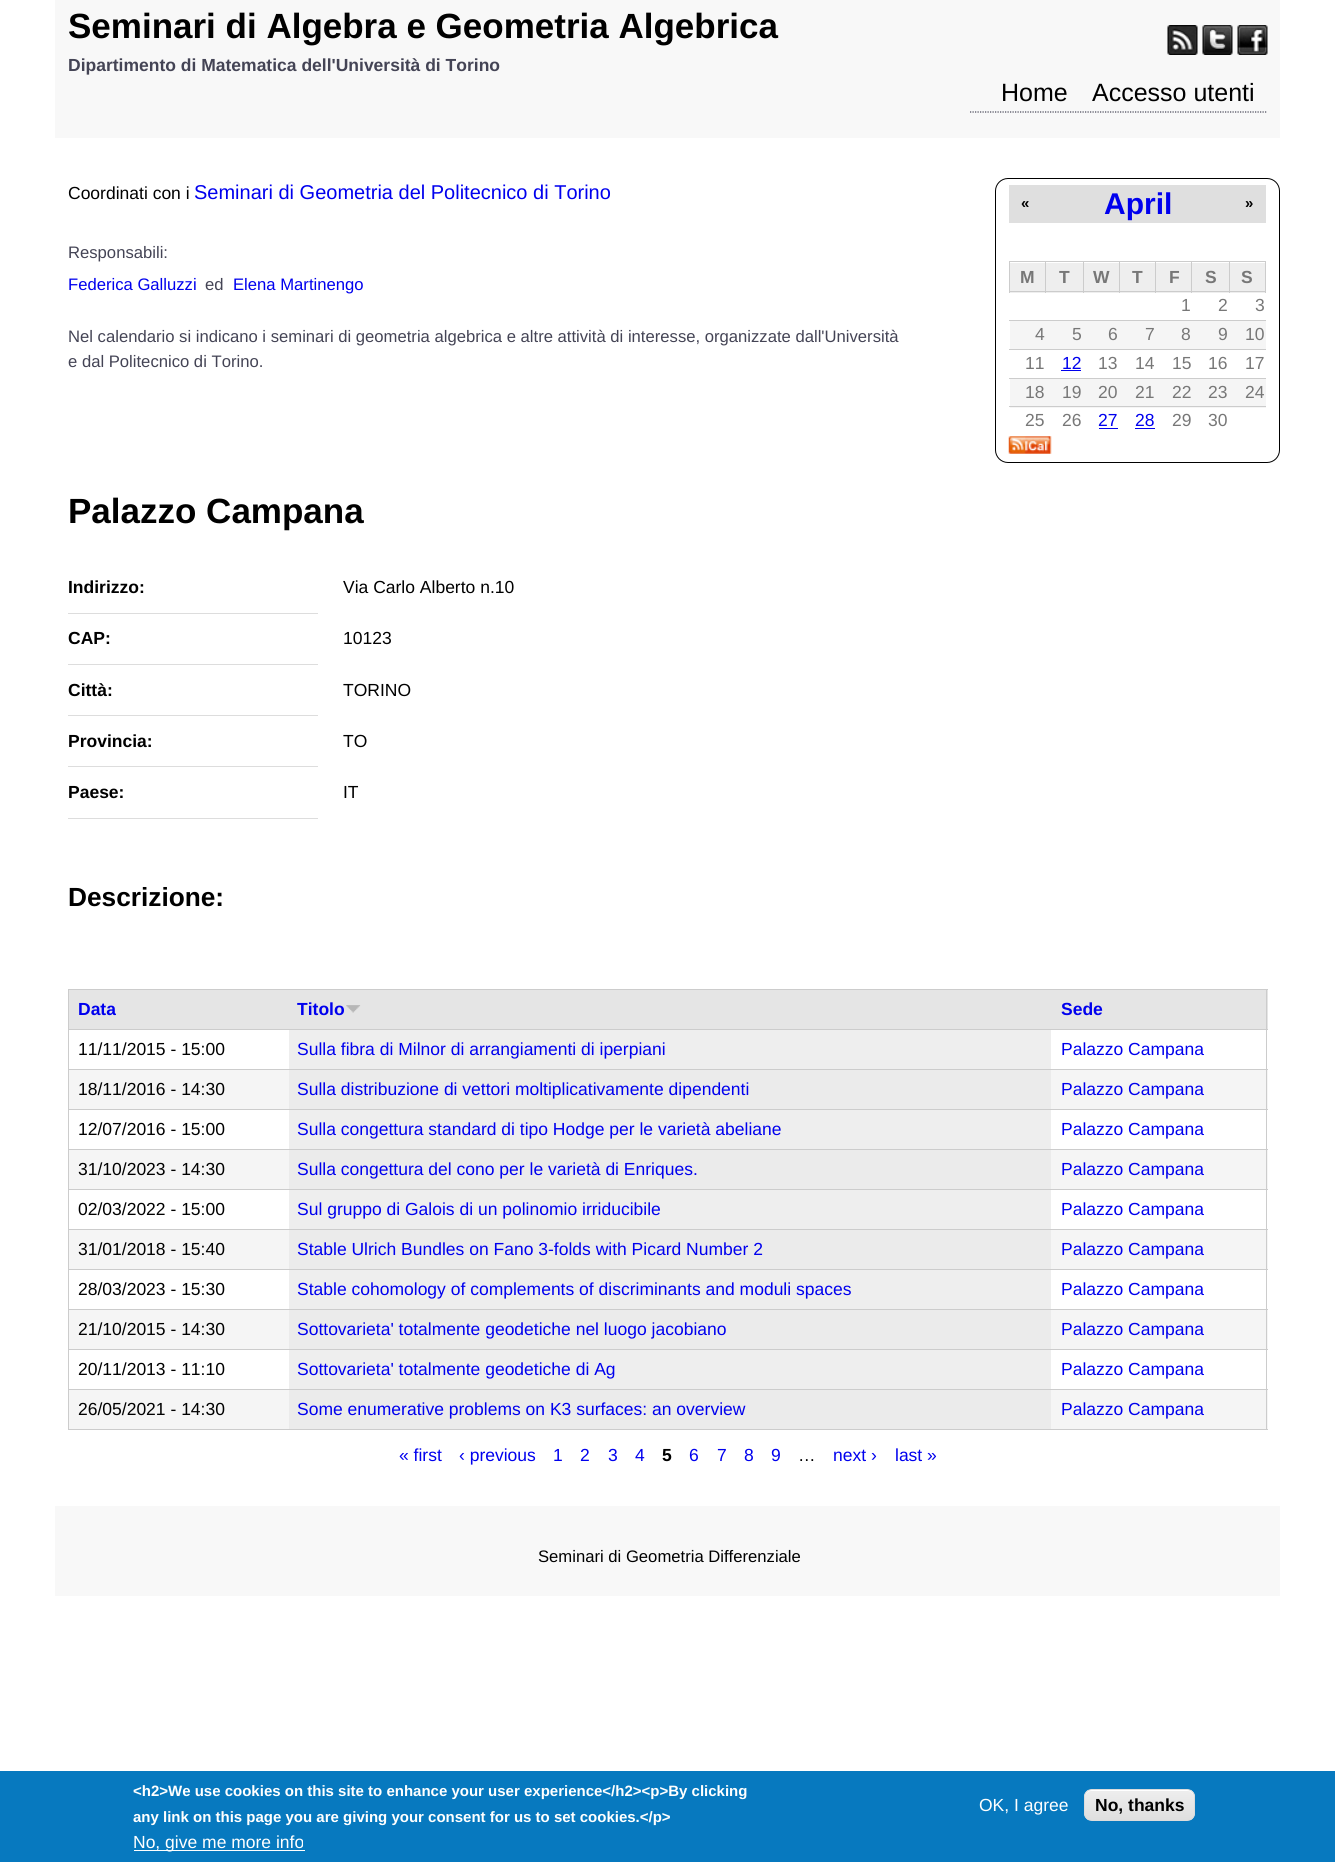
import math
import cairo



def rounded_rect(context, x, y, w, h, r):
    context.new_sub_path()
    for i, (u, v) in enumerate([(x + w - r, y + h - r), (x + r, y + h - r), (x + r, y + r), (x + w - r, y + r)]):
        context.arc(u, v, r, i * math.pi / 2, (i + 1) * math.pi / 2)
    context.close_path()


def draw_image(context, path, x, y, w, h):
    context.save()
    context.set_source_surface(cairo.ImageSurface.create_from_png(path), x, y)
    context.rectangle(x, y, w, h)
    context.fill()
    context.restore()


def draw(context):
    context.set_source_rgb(1, 1, 1)
    context.paint()
    context.set_source_rgb(248 / 255, 248 / 255, 248 / 255)
    context.rectangle(55, 0, 1225, 138)
    context.fill()
    draw_image(context, "images/1.png", 1167, 25, 31, 30)
    draw_image(context, "images/2.png", 1202, 25, 31, 30)
    draw_image(context, "images/3.png", 1237, 25, 31, 30)
    context.new_path()
    context.move_to(970, 112)
    context.line_to(1267.5, 112)
    context.set_source_rgb(68 / 255, 68 / 255, 85 / 255)
    context.set_line_width(1.2)
    context.set_dash([1.25, 1.25])
    context.stroke()
    rounded_rect(context, 995.5, 178.5, 284, 284, 12.5)
    context.set_source_rgb(0, 0, 0)
    context.set_line_width(1)
    context.set_dash([])
    context.stroke()
    context.set_source_rgb(223 / 255, 223 / 255, 223 / 255)
    context.rectangle(1009, 185, 257, 38)
    context.fill()
    context.set_source_rgb(238 / 255, 238 / 255, 238 / 255)
    context.rectangle(1010, 263, 35, 30)
    context.fill()
    context.set_source_rgb(204 / 255, 204 / 255, 204 / 255)
    context.rectangle(1229, 261, 37, 1)
    context.fill()
    context.set_source_rgb(238 / 255, 238 / 255, 238 / 255)
    context.rectangle(1046, 263, 37, 30)
    context.fill()
    context.rectangle(1084, 263, 35, 30)
    context.fill()
    context.rectangle(1120, 263, 35, 30)
    context.fill()
    context.rectangle(1156, 263, 73, 30)
    context.fill()
    context.rectangle(1230, 263, 35, 30)
    context.fill()
    context.set_source_rgb(204 / 255, 204 / 255, 204 / 255)
    context.rectangle(1009, 291, 257, 1)
    context.fill()
    context.rectangle(1229, 261, 1, 32)
    context.fill()
    context.rectangle(1191, 261, 39, 1)
    context.fill()
    context.rectangle(1191, 261, 1, 32)
    context.fill()
    context.rectangle(1155, 261, 38, 1)
    context.fill()
    context.rectangle(1155, 261, 1, 32)
    context.fill()
    context.rectangle(1119, 261, 37, 1)
    context.fill()
    context.rectangle(1119, 261, 1, 32)
    context.fill()
    context.rectangle(1083, 261, 37, 1)
    context.fill()
    context.rectangle(1083, 261, 1, 32)
    context.fill()
    context.rectangle(1045, 261, 39, 1)
    context.fill()
    context.rectangle(1045, 261, 1, 32)
    context.fill()
    context.rectangle(1009, 261, 37, 1)
    context.fill()
    context.rectangle(1009, 261, 1, 32)
    context.fill()
    context.rectangle(1265, 261, 1, 32)
    context.fill()
    context.set_source_rgb(245 / 255, 245 / 255, 245 / 255)
    context.rectangle(1010, 321, 256, 28)
    context.fill()
    context.set_source_rgb(204 / 255, 204 / 255, 204 / 255)
    context.rectangle(1009, 320, 257, 1)
    context.fill()
    context.rectangle(1009, 349, 257, 1)
    context.fill()
    context.set_source_rgb(0, 0, 238 / 255)
    context.rectangle(1061, 370, 20, 1)
    context.fill()
    context.set_source_rgb(245 / 255, 245 / 255, 245 / 255)
    context.rectangle(1010, 379, 256, 29)
    context.fill()
    context.set_source_rgb(204 / 255, 204 / 255, 204 / 255)
    context.rectangle(1009, 378, 257, 1)
    context.fill()
    context.rectangle(1009, 406, 257, 1)
    context.fill()
    context.set_source_rgb(0, 0, 238 / 255)
    context.rectangle(1099, 428, 19, 1)
    context.fill()
    context.rectangle(1135, 428, 20, 1)
    context.fill()
    draw_image(context, "images/4.png", 1008, 436, 44, 18)
    context.set_source_rgb(221 / 255, 221 / 255, 221 / 255)
    context.rectangle(68, 613, 250, 1)
    context.fill()
    context.rectangle(68, 664, 250, 1)
    context.fill()
    context.rectangle(68, 715, 250, 1)
    context.fill()
    context.rectangle(68, 766, 250, 1)
    context.fill()
    context.rectangle(68, 818, 250, 1)
    context.fill()
    context.set_source_rgb(204 / 255, 204 / 255, 204 / 255)
    context.rectangle(68, 989, 1200, 1)
    context.fill()
    context.set_source_rgb(229 / 255, 229 / 255, 229 / 255)
    context.rectangle(69, 990, 1199, 39)
    context.fill()
    context.set_source_rgb(245 / 255, 245 / 255, 245 / 255)
    context.rectangle(69, 1070, 1199, 39)
    context.fill()
    context.rectangle(69, 1150, 1199, 39)
    context.fill()
    context.rectangle(69, 1230, 1199, 39)
    context.fill()
    context.rectangle(69, 1310, 1199, 39)
    context.fill()
    context.rectangle(69, 1390, 1199, 39)
    context.fill()
    context.set_source_rgb(204 / 255, 204 / 255, 204 / 255)
    context.rectangle(1266, 989, 1, 441)
    context.fill()
    context.rectangle(68, 1429, 1200, 1)
    context.fill()
    context.rectangle(68, 989, 1, 441)
    context.fill()
    draw_image(context, "images/5.png", 346, 1005, 15, 8)
    context.rectangle(68, 1029, 1200, 1)
    context.fill()
    context.set_source_rgb(238 / 255, 238 / 255, 238 / 255)
    context.rectangle(289, 1030, 762, 39)
    context.fill()
    context.set_source_rgb(204 / 255, 204 / 255, 204 / 255)
    context.rectangle(68, 1069, 1200, 1)
    context.fill()
    context.set_source_rgb(235 / 255, 235 / 255, 235 / 255)
    context.rectangle(289, 1070, 762, 39)
    context.fill()
    context.set_source_rgb(204 / 255, 204 / 255, 204 / 255)
    context.rectangle(68, 1109, 1200, 1)
    context.fill()
    context.set_source_rgb(238 / 255, 238 / 255, 238 / 255)
    context.rectangle(289, 1110, 762, 39)
    context.fill()
    context.set_source_rgb(204 / 255, 204 / 255, 204 / 255)
    context.rectangle(68, 1149, 1200, 1)
    context.fill()
    context.set_source_rgb(235 / 255, 235 / 255, 235 / 255)
    context.rectangle(289, 1150, 762, 39)
    context.fill()
    context.set_source_rgb(204 / 255, 204 / 255, 204 / 255)
    context.rectangle(68, 1189, 1200, 1)
    context.fill()
    context.set_source_rgb(238 / 255, 238 / 255, 238 / 255)
    context.rectangle(289, 1190, 762, 39)
    context.fill()
    context.set_source_rgb(204 / 255, 204 / 255, 204 / 255)
    context.rectangle(68, 1229, 1200, 1)
    context.fill()
    context.set_source_rgb(235 / 255, 235 / 255, 235 / 255)
    context.rectangle(289, 1230, 762, 39)
    context.fill()
    context.set_source_rgb(204 / 255, 204 / 255, 204 / 255)
    context.rectangle(68, 1269, 1200, 1)
    context.fill()
    context.set_source_rgb(238 / 255, 238 / 255, 238 / 255)
    context.rectangle(289, 1270, 762, 39)
    context.fill()
    context.set_source_rgb(204 / 255, 204 / 255, 204 / 255)
    context.rectangle(68, 1309, 1200, 1)
    context.fill()
    context.set_source_rgb(235 / 255, 235 / 255, 235 / 255)
    context.rectangle(289, 1310, 762, 39)
    context.fill()
    context.set_source_rgb(204 / 255, 204 / 255, 204 / 255)
    context.rectangle(68, 1349, 1200, 1)
    context.fill()
    context.set_source_rgb(238 / 255, 238 / 255, 238 / 255)
    context.rectangle(289, 1350, 762, 39)
    context.fill()
    context.set_source_rgb(204 / 255, 204 / 255, 204 / 255)
    context.rectangle(68, 1389, 1200, 1)
    context.fill()
    context.set_source_rgb(235 / 255, 235 / 255, 235 / 255)
    context.rectangle(289, 1390, 762, 39)
    context.fill()
    context.set_source_rgb(248 / 255, 248 / 255, 248 / 255)
    context.rectangle(55, 1506, 1225, 90)
    context.fill()
    context.set_source_rgb(7 / 255, 121 / 255, 191 / 255)
    context.rectangle(0, 1771, 1335, 91)
    context.fill()
    context.set_source_rgb(1, 1, 1)
    context.rectangle(134, 1850, 171, 1)
    context.fill()
    context.save()
    rounded_rect(context, 1084, 1789, 111, 32, 8)
    context.clip()
    gradient = cairo.LinearGradient(1139, 1790, 1139, 1820)
    gradient.add_color_stop_rgba(0.05, 237 / 255, 237 / 255, 237 / 255, 1)
    gradient.add_color_stop_rgba(1, 223 / 255, 223 / 255, 223 / 255, 1)
    context.set_source(gradient)
    context.rectangle(1084, 1790, 111, 30)
    context.fill()
    context.restore()
    context.new_path()
    context.move_to(1091, 1791)
    context.line_to(1188, 1791)
    context.curve_to(1191, 1791, 1194, 1794, 1194, 1798)
    context.curve_to(1194, 1786, 1181, 1790, 1172, 1790)
    context.line_to(1107, 1790)
    context.curve_to(1098, 1790, 1085, 1786, 1085, 1798)
    context.curve_to(1085, 1794, 1088, 1791, 1091, 1791)
    context.close_path()
    context.fill()
    rounded_rect(context, 1084.5, 1789.5, 110, 31, 7.5)
    context.set_source_rgb(220 / 255, 220 / 255, 220 / 255)
    context.stroke()
    context.select_font_face("Liberation Sans", cairo.FontSlant.NORMAL, cairo.FontWeight.BOLD)
    context.set_font_size(35)
    context.set_source_rgb(0, 0, 0)
    context.move_to(68, 38)
    context.show_text("Seminari di Algebra e Geometria Algebrica")
    context.set_font_size(17.5)
    context.set_source_rgb(68 / 255, 68 / 255, 85 / 255)
    context.move_to(68, 71)
    context.show_text("Dipartimento di Matematica dell'Università di Torino")
    context.select_font_face("Liberation Sans")
    context.set_font_size(25)
    context.set_source_rgb(0, 0, 0)
    context.move_to(1001, 101)
    context.show_text("Home")
    context.move_to(1092, 101)
    context.show_text("Accesso utenti")
    context.set_font_size(17.5)
    context.move_to(68, 199)
    context.show_text("Coordinati con i")
    context.set_font_size(20)
    context.set_source_rgb(0, 0, 238 / 255)
    context.move_to(194, 199)
    context.show_text("Seminari di Geometria del Politecnico di Torino")
    context.select_font_face("Liberation Sans", cairo.FontSlant.NORMAL, cairo.FontWeight.BOLD)
    context.set_font_size(30)
    context.move_to(1104, 214)
    context.show_text("April")
    context.set_font_size(15)
    context.set_source_rgb(0, 0, 0)
    context.move_to(1021, 208)
    context.show_text("«")
    context.move_to(1245, 208)
    context.show_text("»")
    context.set_font_size(17.5)
    context.set_source_rgb(119 / 255, 119 / 255, 119 / 255)
    context.move_to(1020, 283)
    context.show_text("M")
    context.move_to(1059, 283)
    context.show_text("T")
    context.move_to(1093, 283)
    context.show_text("W")
    context.move_to(1132, 283)
    context.show_text("T")
    context.move_to(1169, 283)
    context.show_text("F")
    context.move_to(1205, 283)
    context.show_text("S")
    context.move_to(1241, 283)
    context.show_text("S")
    context.select_font_face("Liberation Sans")
    context.move_to(1181, 311)
    context.show_text("1")
    context.move_to(1218, 311)
    context.show_text("2")
    context.move_to(1255, 311)
    context.show_text("3")
    context.move_to(1035, 340)
    context.show_text("4")
    context.move_to(1072, 340)
    context.show_text("5")
    context.move_to(1108, 340)
    context.show_text("6")
    context.move_to(1145, 340)
    context.show_text("7")
    context.move_to(1181, 340)
    context.show_text("8")
    context.move_to(1218, 340)
    context.show_text("9")
    context.move_to(1245, 340)
    context.show_text("10")
    context.move_to(1025, 369)
    context.show_text("11")
    context.set_source_rgb(0, 0, 238 / 255)
    context.move_to(1062, 369)
    context.show_text("12")
    context.set_source_rgb(119 / 255, 119 / 255, 119 / 255)
    context.move_to(1098, 369)
    context.show_text("13")
    context.move_to(1135, 369)
    context.show_text("14")
    context.move_to(1172, 369)
    context.show_text("15")
    context.move_to(1208, 369)
    context.show_text("16")
    context.move_to(1245, 369)
    context.show_text("17")
    context.move_to(1025, 398)
    context.show_text("18")
    context.move_to(1062, 398)
    context.show_text("19")
    context.move_to(1098, 398)
    context.show_text("20")
    context.move_to(1135, 398)
    context.show_text("21")
    context.move_to(1172, 398)
    context.show_text("22")
    context.move_to(1208, 398)
    context.show_text("23")
    context.move_to(1245, 398)
    context.show_text("24")
    context.move_to(1025, 426)
    context.show_text("25")
    context.move_to(1062, 426)
    context.show_text("26")
    context.set_source_rgb(0, 0, 238 / 255)
    context.move_to(1098, 426)
    context.show_text("27")
    context.move_to(1135, 426)
    context.show_text("28")
    context.set_source_rgb(119 / 255, 119 / 255, 119 / 255)
    context.move_to(1172, 426)
    context.show_text("29")
    context.move_to(1208, 426)
    context.show_text("30")
    context.set_font_size(16.65)
    context.set_source_rgb(68 / 255, 68 / 255, 85 / 255)
    context.move_to(68, 258)
    context.show_text("Responsabili:")
    context.set_source_rgb(0, 0, 238 / 255)
    context.move_to(68, 290)
    context.show_text("Federica Galluzzi")
    context.set_source_rgb(68 / 255, 68 / 255, 85 / 255)
    context.move_to(205, 290)
    context.show_text("ed")
    context.set_source_rgb(0, 0, 238 / 255)
    context.move_to(233, 290)
    context.show_text("Elena Martinengo")
    context.set_source_rgb(68 / 255, 68 / 255, 85 / 255)
    context.move_to(68, 342)
    context.show_text("Nel calendario si indicano i seminari di geometria algebrica e altre attività di interesse, organizzate dall'Università")
    context.move_to(68, 367)
    context.show_text("e dal Politecnico di Torino.")
    context.select_font_face("Liberation Sans", cairo.FontSlant.NORMAL, cairo.FontWeight.BOLD)
    context.set_font_size(35)
    context.set_source_rgb(0, 0, 0)
    context.move_to(68, 523)
    context.show_text("Palazzo Campana")
    context.set_font_size(17.5)
    context.move_to(68, 593)
    context.show_text("Indirizzo:")
    context.select_font_face("Liberation Sans")
    context.move_to(343, 593)
    context.show_text("Via Carlo Alberto n.10")
    context.select_font_face("Liberation Sans", cairo.FontSlant.NORMAL, cairo.FontWeight.BOLD)
    context.move_to(68, 644)
    context.show_text("CAP:")
    context.select_font_face("Liberation Sans")
    context.move_to(343, 644)
    context.show_text("10123")
    context.select_font_face("Liberation Sans", cairo.FontSlant.NORMAL, cairo.FontWeight.BOLD)
    context.move_to(68, 696)
    context.show_text("Città:")
    context.select_font_face("Liberation Sans")
    context.move_to(343, 696)
    context.show_text("TORINO")
    context.select_font_face("Liberation Sans", cairo.FontSlant.NORMAL, cairo.FontWeight.BOLD)
    context.move_to(68, 747)
    context.show_text("Provincia:")
    context.select_font_face("Liberation Sans")
    context.move_to(343, 747)
    context.show_text("TO")
    context.select_font_face("Liberation Sans", cairo.FontSlant.NORMAL, cairo.FontWeight.BOLD)
    context.move_to(68, 798)
    context.show_text("Paese:")
    context.select_font_face("Liberation Sans")
    context.move_to(343, 798)
    context.show_text("IT")
    context.select_font_face("Liberation Sans", cairo.FontSlant.NORMAL, cairo.FontWeight.BOLD)
    context.set_font_size(26.25)
    context.move_to(68, 906)
    context.show_text("Descrizione:")
    context.set_font_size(17.5)
    context.set_source_rgb(0, 0, 238 / 255)
    context.move_to(78, 1015)
    context.show_text("Data")
    context.move_to(297, 1015)
    context.show_text("Titolo")
    context.move_to(1061, 1015)
    context.show_text("Sede")
    context.select_font_face("Liberation Sans")
    context.set_source_rgb(0, 0, 0)
    context.move_to(78, 1055)
    context.show_text("11/11/2015 - 15:00")
    context.set_source_rgb(0, 0, 238 / 255)
    context.move_to(297, 1055)
    context.show_text("Sulla fibra di Milnor di arrangiamenti di iperpiani")
    context.move_to(1061, 1055)
    context.show_text("Palazzo Campana")
    context.set_source_rgb(0, 0, 0)
    context.move_to(78, 1095)
    context.show_text("18/11/2016 - 14:30")
    context.set_source_rgb(0, 0, 238 / 255)
    context.move_to(297, 1095)
    context.show_text("Sulla distribuzione di vettori moltiplicativamente dipendenti")
    context.move_to(1061, 1095)
    context.show_text("Palazzo Campana")
    context.set_source_rgb(0, 0, 0)
    context.move_to(78, 1135)
    context.show_text("12/07/2016 - 15:00")
    context.set_source_rgb(0, 0, 238 / 255)
    context.move_to(297, 1135)
    context.show_text("Sulla congettura standard di tipo Hodge per le varietà abeliane")
    context.move_to(1061, 1135)
    context.show_text("Palazzo Campana")
    context.set_source_rgb(0, 0, 0)
    context.move_to(78, 1175)
    context.show_text("31/10/2023 - 14:30")
    context.set_source_rgb(0, 0, 238 / 255)
    context.move_to(297, 1175)
    context.show_text("Sulla congettura del cono per le varietà di Enriques.")
    context.move_to(1061, 1175)
    context.show_text("Palazzo Campana")
    context.set_source_rgb(0, 0, 0)
    context.move_to(78, 1215)
    context.show_text("02/03/2022 - 15:00")
    context.set_source_rgb(0, 0, 238 / 255)
    context.move_to(297, 1215)
    context.show_text("Sul gruppo di Galois di un polinomio irriducibile")
    context.move_to(1061, 1215)
    context.show_text("Palazzo Campana")
    context.set_source_rgb(0, 0, 0)
    context.move_to(78, 1255)
    context.show_text("31/01/2018 - 15:40")
    context.set_source_rgb(0, 0, 238 / 255)
    context.move_to(297, 1255)
    context.show_text("Stable Ulrich Bundles on Fano 3-folds with Picard Number 2")
    context.move_to(1061, 1255)
    context.show_text("Palazzo Campana")
    context.set_source_rgb(0, 0, 0)
    context.move_to(78, 1295)
    context.show_text("28/03/2023 - 15:30")
    context.set_source_rgb(0, 0, 238 / 255)
    context.move_to(297, 1295)
    context.show_text("Stable cohomology of complements of discriminants and moduli spaces")
    context.move_to(1061, 1295)
    context.show_text("Palazzo Campana")
    context.set_source_rgb(0, 0, 0)
    context.move_to(78, 1335)
    context.show_text("21/10/2015 - 14:30")
    context.set_source_rgb(0, 0, 238 / 255)
    context.move_to(297, 1335)
    context.show_text("Sottovarieta' totalmente geodetiche nel luogo jacobiano")
    context.move_to(1061, 1335)
    context.show_text("Palazzo Campana")
    context.set_source_rgb(0, 0, 0)
    context.move_to(78, 1375)
    context.show_text("20/11/2013 - 11:10")
    context.set_source_rgb(0, 0, 238 / 255)
    context.move_to(297, 1375)
    context.show_text("Sottovarieta' totalmente geodetiche di Ag")
    context.move_to(1061, 1375)
    context.show_text("Palazzo Campana")
    context.set_source_rgb(0, 0, 0)
    context.move_to(78, 1415)
    context.show_text("26/05/2021 - 14:30")
    context.set_source_rgb(0, 0, 238 / 255)
    context.move_to(297, 1415)
    context.show_text("Some enumerative problems on K3 surfaces: an overview")
    context.move_to(1061, 1415)
    context.show_text("Palazzo Campana")
    context.move_to(399, 1461)
    context.show_text("« first")
    context.move_to(459, 1461)
    context.show_text("‹ previous")
    context.move_to(553, 1461)
    context.show_text("1")
    context.move_to(580, 1461)
    context.show_text("2")
    context.move_to(608, 1461)
    context.show_text("3")
    context.move_to(635, 1461)
    context.show_text("4")
    context.select_font_face("Liberation Sans", cairo.FontSlant.NORMAL, cairo.FontWeight.BOLD)
    context.set_source_rgb(0, 0, 0)
    context.move_to(662, 1461)
    context.show_text("5")
    context.select_font_face("Liberation Sans")
    context.set_source_rgb(0, 0, 238 / 255)
    context.move_to(689, 1461)
    context.show_text("6")
    context.move_to(717, 1461)
    context.show_text("7")
    context.move_to(744, 1461)
    context.show_text("8")
    context.move_to(771, 1461)
    context.show_text("9")
    context.set_source_rgb(0, 0, 0)
    context.move_to(798, 1461)
    context.show_text("…")
    context.set_source_rgb(0, 0, 238 / 255)
    context.move_to(833, 1461)
    context.show_text("next ›")
    context.move_to(895, 1461)
    context.show_text("last »")
    context.set_font_size(16.65)
    context.set_source_rgb(0, 0, 0)
    context.move_to(538, 1562)
    context.show_text("Seminari di Geometria Differenziale")
    context.select_font_face("Liberation Sans", cairo.FontSlant.NORMAL, cairo.FontWeight.BOLD)
    context.set_font_size(15)
    context.set_source_rgb(1, 1, 1)
    context.move_to(133, 1796)
    context.show_text("<h2>We use cookies on this site to enhance your user experience</h2><p>By clicking")
    context.move_to(133, 1822)
    context.show_text("any link on this page you are giving your consent for us to set cookies.</p>")
    context.select_font_face("Liberation Sans")
    context.set_font_size(17.5)
    context.move_to(133, 1848)
    context.show_text("No, give me more info")
    context.move_to(979, 1811)
    context.show_text("OK, I agree")
    context.select_font_face("Liberation Sans", cairo.FontSlant.NORMAL, cairo.FontWeight.BOLD)
    context.set_source_rgb(0, 0, 0)
    context.move_to(1095, 1811)
    context.show_text("No, thanks")


surface = cairo.ImageSurface(cairo.Format.RGB24, 1335, 1862)
context = cairo.Context(surface)
options = cairo.FontOptions()
options.set_hint_metrics(cairo.HintMetrics.OFF)
options.set_hint_style(cairo.HintStyle.NONE)
context.set_font_options(options)
context.set_miter_limit(4)
draw(context)
surface.write_to_png("out.png")
